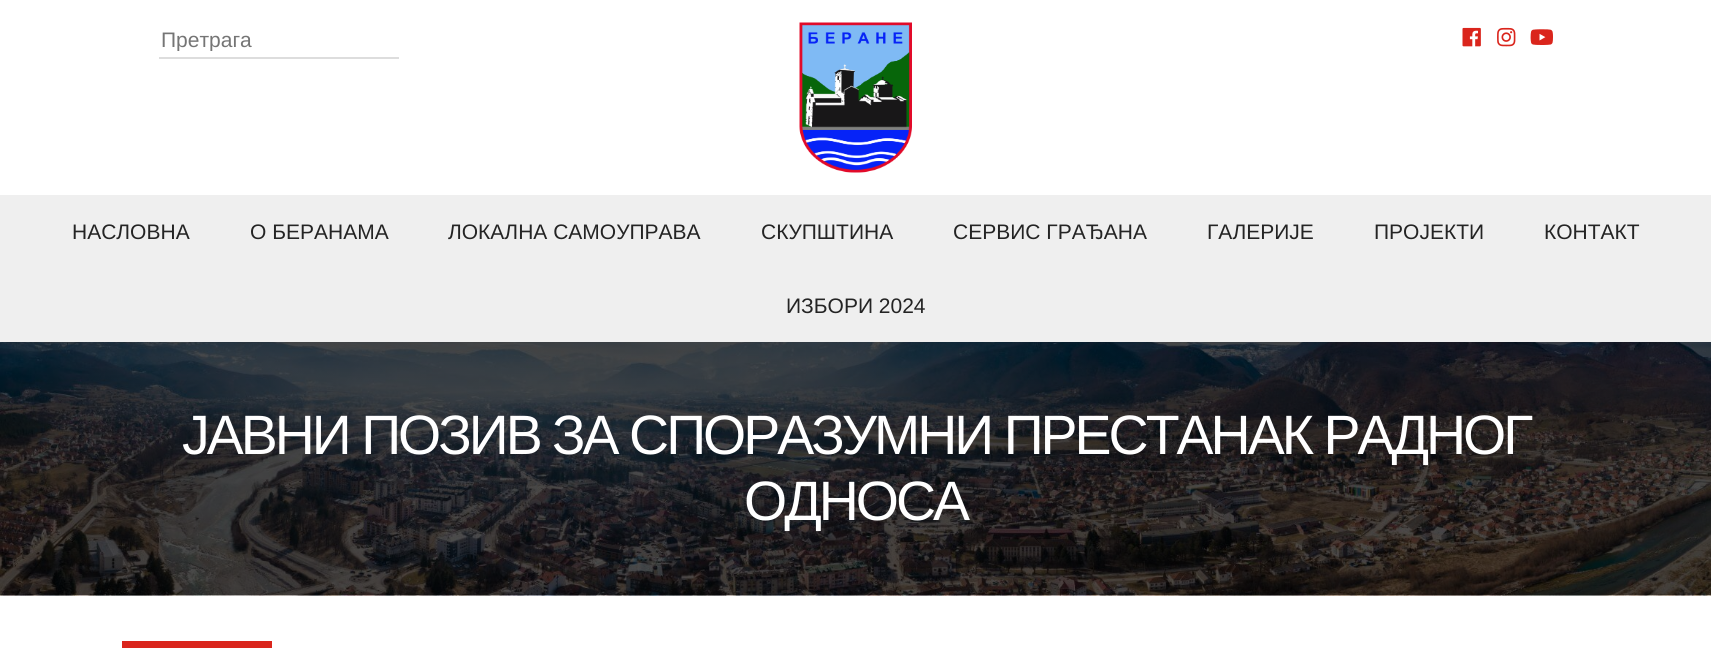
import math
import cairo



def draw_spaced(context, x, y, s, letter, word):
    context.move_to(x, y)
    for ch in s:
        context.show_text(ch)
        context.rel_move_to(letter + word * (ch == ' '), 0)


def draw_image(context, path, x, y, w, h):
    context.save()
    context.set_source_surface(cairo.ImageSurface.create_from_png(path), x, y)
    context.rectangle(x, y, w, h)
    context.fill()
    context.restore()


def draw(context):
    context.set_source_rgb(1, 1, 1)
    context.paint()
    context.set_source_rgb(221 / 255, 221 / 255, 221 / 255)
    context.rectangle(159, 57, 240, 2)
    context.fill()
    draw_image(context, "images/1.png", 799, 22, 113, 151)
    draw_image(context, "images/2.png", 1462, 27, 19, 20)
    draw_image(context, "images/3.png", 1497, 27, 19, 20)
    draw_image(context, "images/4.png", 1530, 29, 23, 16)
    context.set_source_rgb(239 / 255, 239 / 255, 239 / 255)
    context.rectangle(0, 195, 1711, 147)
    context.fill()
    draw_image(context, "images/5.png", 0, 342, 1711, 254)
    context.set_source_rgb(218 / 255, 37 / 255, 28 / 255)
    context.rectangle(122, 641, 150, 7)
    context.fill()
    context.save()
    context.rectangle(162, 27, 228, 24)
    context.clip()
    context.select_font_face("Liberation Sans")
    context.set_font_size(21)
    context.set_source_rgb(117 / 255, 117 / 255, 117 / 255)
    context.move_to(161, 47)
    context.show_text("Претрага")
    context.restore()
    context.select_font_face("Liberation Sans")
    context.set_font_size(21)
    context.set_source_rgb(36 / 255, 36 / 255, 36 / 255)
    context.move_to(72, 239)
    context.show_text("НАСЛОВНА")
    context.move_to(250, 239)
    context.show_text("O БЕРАНАМА")
    context.move_to(448, 239)
    context.show_text("ЛОКАЛНА САМОУПРАВА")
    context.move_to(761, 239)
    context.show_text("СКУПШТИНА")
    context.move_to(953, 239)
    context.show_text("СЕРВИС ГРАЂАНА")
    context.move_to(1207, 239)
    context.show_text("ГАЛЕРИЈЕ")
    context.move_to(1374, 239)
    context.show_text("ПРОЈЕКТИ")
    context.move_to(1544, 239)
    context.show_text("КОНТАКТ")
    context.move_to(786, 313)
    context.show_text("ИЗБОРИ 2024")
    context.set_font_size(55.5)
    context.set_source_rgb(1, 1, 1)
    draw_spaced(context, 182, 454, "ЈАВНИ ПОЗИВ ЗА СПОРАЗУМНИ ПРЕСТАНАК РАДНОГ", -3, 0)
    draw_spaced(context, 744, 520, "ОДНОСА", -3, 0)


surface = cairo.ImageSurface(cairo.Format.RGB24, 1711, 648)
context = cairo.Context(surface)
options = cairo.FontOptions()
options.set_hint_metrics(cairo.HintMetrics.OFF)
options.set_hint_style(cairo.HintStyle.NONE)
context.set_font_options(options)
context.set_miter_limit(4)
draw(context)
surface.write_to_png("out.png")
